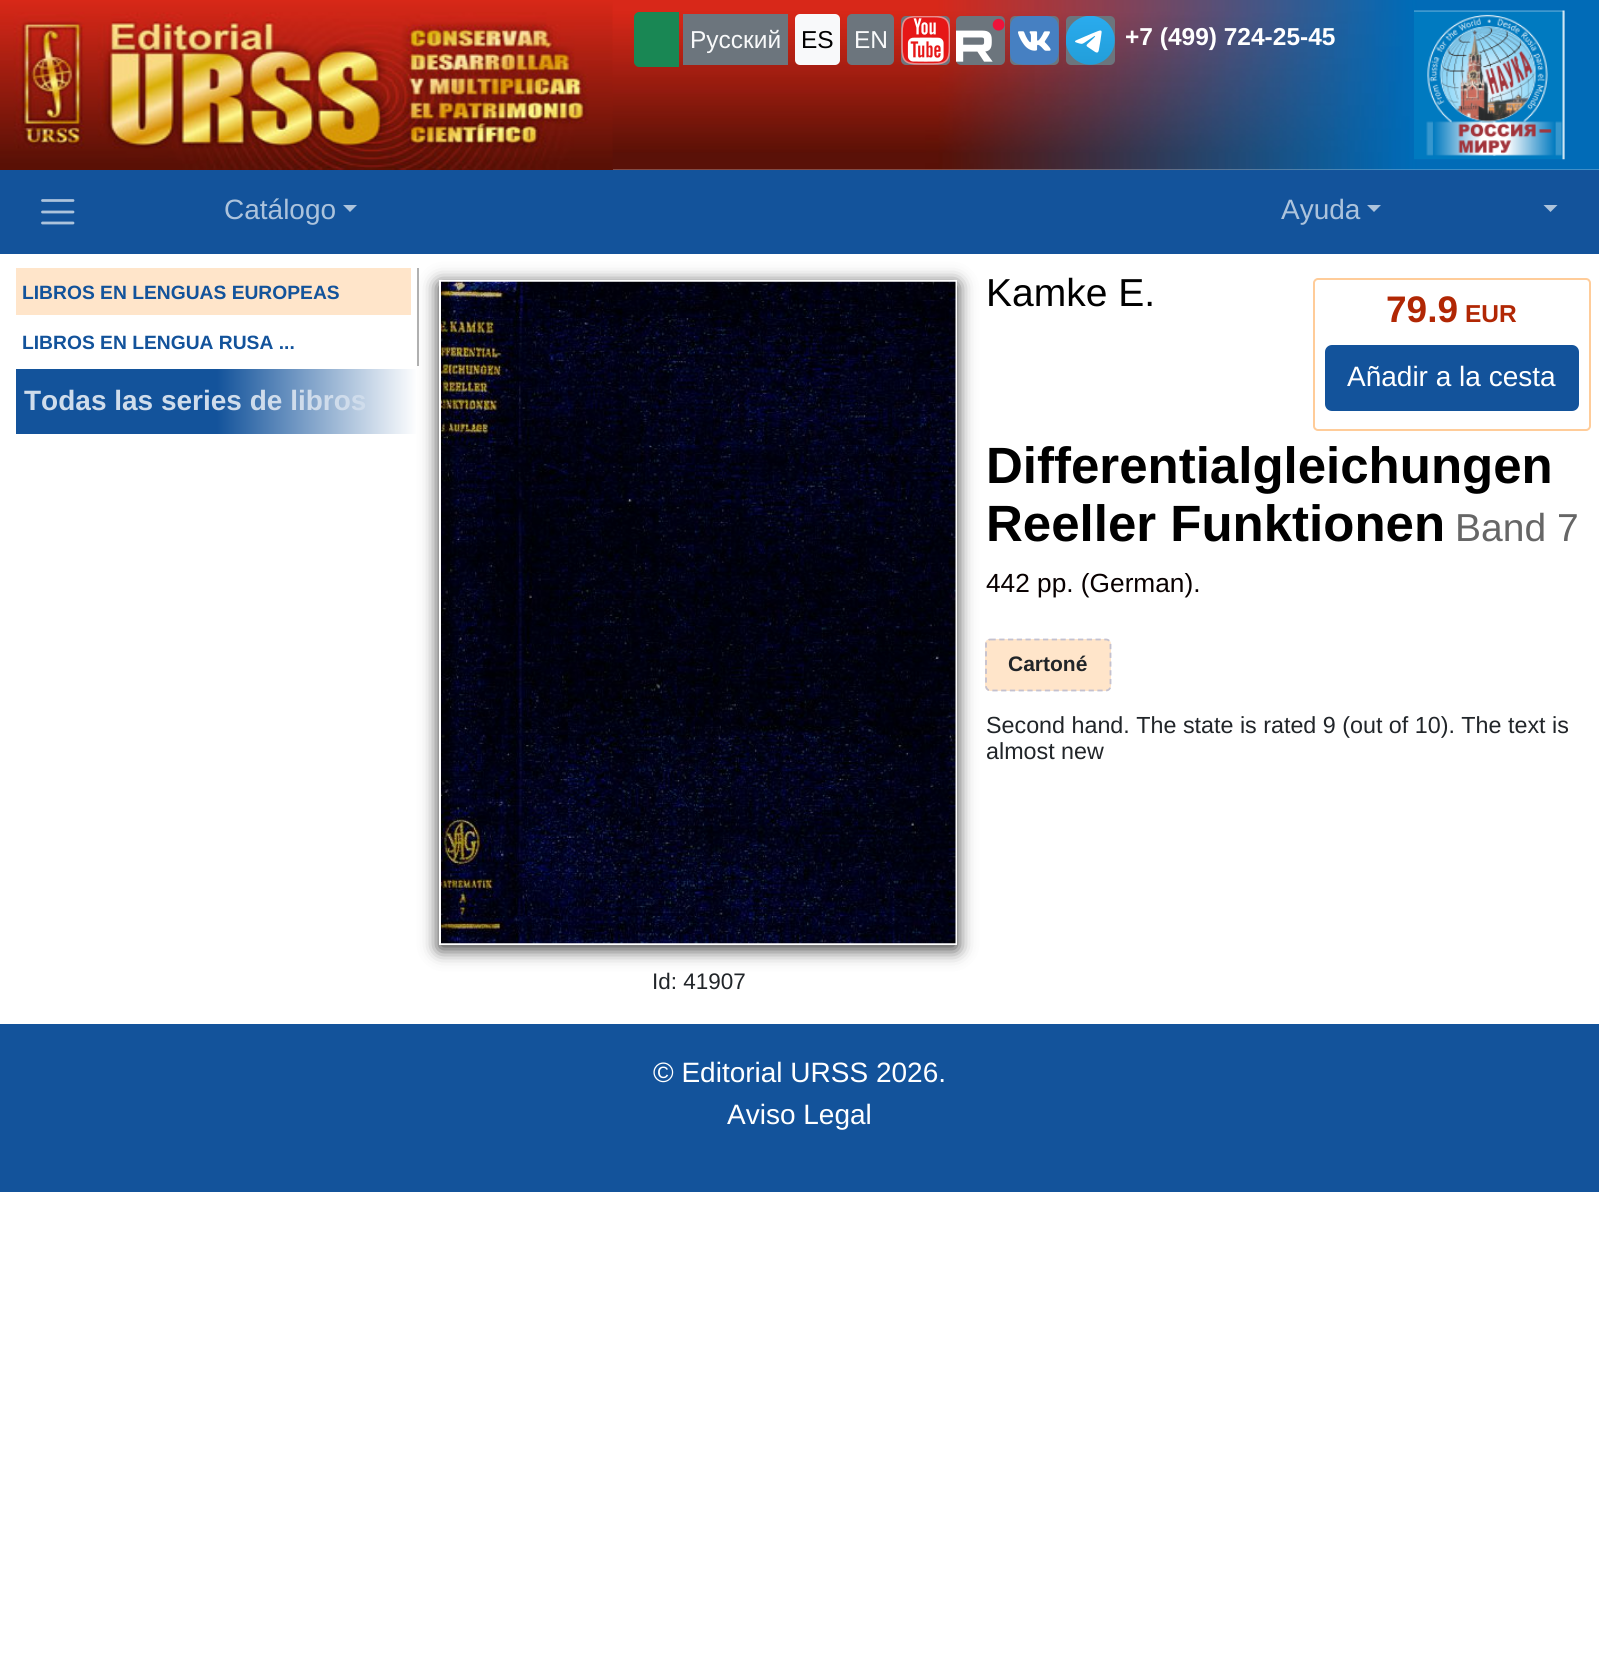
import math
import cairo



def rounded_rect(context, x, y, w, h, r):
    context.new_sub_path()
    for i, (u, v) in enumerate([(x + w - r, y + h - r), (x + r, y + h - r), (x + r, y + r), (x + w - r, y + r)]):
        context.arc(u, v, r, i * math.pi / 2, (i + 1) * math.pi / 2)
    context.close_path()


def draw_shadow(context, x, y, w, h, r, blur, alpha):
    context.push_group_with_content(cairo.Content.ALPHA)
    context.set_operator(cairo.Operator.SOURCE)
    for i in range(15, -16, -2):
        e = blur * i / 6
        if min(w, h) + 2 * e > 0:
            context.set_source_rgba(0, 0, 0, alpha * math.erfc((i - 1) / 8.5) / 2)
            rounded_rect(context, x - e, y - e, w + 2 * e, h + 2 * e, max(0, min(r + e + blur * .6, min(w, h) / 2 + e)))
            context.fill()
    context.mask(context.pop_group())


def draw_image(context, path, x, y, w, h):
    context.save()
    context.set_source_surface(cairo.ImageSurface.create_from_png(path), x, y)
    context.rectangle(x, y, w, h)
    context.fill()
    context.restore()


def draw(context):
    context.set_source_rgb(1, 1, 1)
    context.paint()
    gradient = cairo.LinearGradient(306, 0, 306, 170)
    gradient.add_color_stop_rgba(0, 216 / 255, 40 / 255, 24 / 255, 1)
    gradient.add_color_stop_rgba(1, 91 / 255, 17 / 255, 8 / 255, 1)
    context.set_source(gradient)
    context.rectangle(0, 0, 613, 170)
    context.fill()
    draw_image(context, "images/1.png", 0, 12, 613, 158)
    draw_image(context, "images/2.png", 612, 0, 987, 170)
    context.set_source_rgb(25 / 255, 135 / 255, 84 / 255)
    context.new_path()
    context.move_to(639, 13)
    context.line_to(678, 13)
    context.line_to(678, 66)
    context.line_to(639, 66)
    context.curve_to(637, 66, 635, 64, 635, 62)
    context.line_to(635, 17)
    context.curve_to(635, 15, 637, 13, 639, 13)
    context.close_path()
    context.fill_preserve()
    context.stroke()
    context.set_source_rgb(108 / 255, 117 / 255, 125 / 255)
    context.rectangle(683, 14, 105, 51)
    context.fill()
    context.set_source_rgb(248 / 255, 249 / 255, 250 / 255)
    rounded_rect(context, 795, 14, 45, 51, 5)
    context.fill()
    context.set_source_rgb(108 / 255, 117 / 255, 125 / 255)
    rounded_rect(context, 847, 14, 47, 51, 5)
    context.fill()
    rounded_rect(context, 901, 16, 49, 49, 5)
    context.fill()
    draw_image(context, "images/3.png", 901, 16, 49, 49)
    rounded_rect(context, 956, 16, 49, 49, 5)
    context.fill()
    draw_image(context, "images/4.png", 956, 18, 49, 44)
    rounded_rect(context, 1010, 16, 49, 49, 5)
    context.fill()
    draw_image(context, "images/5.png", 1010, 16, 49, 49)
    rounded_rect(context, 1066, 16, 49, 49, 5)
    context.fill()
    draw_image(context, "images/6.png", 1066, 16, 49, 49)
    draw_image(context, "images/7.png", 1414, 10, 151, 150)
    context.set_source_rgb(19 / 255, 83 / 255, 155 / 255)
    context.rectangle(0, 170, 1599, 84)
    context.fill()
    context.new_path()
    context.move_to(42.5, 200.5)
    context.line_to(73, 200.5)
    context.move_to(42.5, 212)
    context.line_to(73, 212)
    context.move_to(42.5, 223)
    context.line_to(73, 223)
    context.set_source_rgb(172 / 255, 195 / 255, 220 / 255)
    context.set_line_width(2.8)
    context.set_line_cap(cairo.LineCap.ROUND)
    context.stroke()
    context.new_path()
    context.move_to(343, 205)
    context.line_to(357, 205)
    context.line_to(350, 212)
    context.close_path()
    context.fill()
    context.new_path()
    context.move_to(1367, 205)
    context.line_to(1381, 205)
    context.line_to(1374, 212)
    context.close_path()
    context.fill()
    context.new_path()
    context.move_to(1543.5, 205)
    context.line_to(1557.5, 205)
    context.line_to(1550.5, 212)
    context.close_path()
    context.fill()
    context.set_source_rgb(177 / 255, 177 / 255, 177 / 255)
    context.rectangle(417, 268, 2, 98)
    context.fill()
    context.set_source_rgb(1, 229 / 255, 202 / 255)
    context.rectangle(16, 268, 395, 47)
    context.fill()
    gradient = cairo.LinearGradient(16, 402, 418, 402)
    gradient.add_color_stop_rgba(0, 19 / 255, 83 / 255, 155 / 255, 1)
    gradient.add_color_stop_rgba(0.5, 19 / 255, 83 / 255, 155 / 255, 1)
    gradient.add_color_stop_rgba(1, 1, 1, 1, 1)
    context.set_source(gradient)
    context.rectangle(16, 369, 400, 65)
    context.fill()
    rounded_rect(context, 1314, 279, 276, 151, 4)
    context.set_source_rgb(1, 204 / 255, 153 / 255)
    context.set_line_width(2)
    context.set_line_cap(cairo.LineCap.BUTT)
    context.stroke()
    context.set_source_rgb(19 / 255, 83 / 255, 155 / 255)
    rounded_rect(context, 1326, 346, 252, 64, 6)
    context.fill_preserve()
    context.stroke()
    context.set_source_rgb(1, 229 / 255, 202 / 255)
    rounded_rect(context, 985, 639, 126, 52, 5)
    context.fill()
    context.new_path()
    context.move_to(990.5, 639.5)
    context.line_to(1106, 639.5)
    context.curve_to(1108.5, 639.5, 1110.5, 641.5, 1110.5, 644)
    context.line_to(1110.5, 686)
    context.curve_to(1110.5, 688.5, 1108.5, 690.5, 1106, 690.5)
    context.line_to(990.5, 690.5)
    context.curve_to(988, 690.5, 986, 688.5, 986, 686)
    context.line_to(986, 644)
    context.curve_to(986, 641.5, 988, 639.5, 990.5, 639.5)
    context.close_path()
    context.set_source_rgb(196 / 255, 193 / 255, 207 / 255)
    context.set_line_width(1.8)
    context.set_dash([5.25, 3.5])
    context.stroke()
    context.set_source_rgb(0, 0, 0)
    draw_shadow(context, 439, 284, 518, 665, 0, 9, 0.8)
    context.rectangle(440, 281, 516, 663)
    context.set_source_rgb(1, 1, 1)
    context.set_line_width(2)
    context.set_dash([])
    context.stroke()
    draw_image(context, "images/8.png", 441, 281, 515, 663)
    context.set_source_rgb(19 / 255, 83 / 255, 155 / 255)
    context.rectangle(0, 1024, 1599, 168)
    context.fill()
    context.select_font_face("Liberation Sans")
    context.set_font_size(24.5)
    context.set_source_rgb(248 / 255, 249 / 255, 250 / 255)
    context.move_to(690, 48)
    context.show_text("Русский")
    context.set_source_rgb(0, 0, 0)
    context.move_to(801, 48)
    context.show_text("ES")
    context.set_source_rgb(248 / 255, 249 / 255, 250 / 255)
    context.move_to(854, 48)
    context.show_text("EN")
    context.select_font_face("Liberation Sans", cairo.FontSlant.NORMAL, cairo.FontWeight.BOLD)
    context.set_source_rgb(1, 1, 1)
    context.move_to(1125, 45)
    context.show_text("+7 (499) 724-25-45")
    context.select_font_face("Liberation Sans")
    context.set_font_size(28)
    context.set_source_rgb(172 / 255, 195 / 255, 220 / 255)
    context.move_to(224, 219)
    context.show_text("Catálogo")
    context.move_to(1281, 219)
    context.show_text("Ayuda")
    context.select_font_face("Liberation Sans", cairo.FontSlant.NORMAL, cairo.FontWeight.BOLD)
    context.set_font_size(19.25)
    context.set_source_rgb(19 / 255, 83 / 255, 155 / 255)
    context.move_to(22, 299)
    context.show_text("LIBROS EN LENGUAS EUROPEAS")
    context.move_to(22, 349)
    context.show_text("LIBROS EN LENGUA RUSA ...")
    context.set_font_size(28)
    context.set_source_rgb(207 / 255, 220 / 255, 235 / 255)
    context.move_to(24, 410)
    context.show_text("Todas las series de libros")
    context.select_font_face("Liberation Sans")
    context.set_font_size(39)
    context.set_source_rgb(0, 0, 0)
    context.move_to(986, 306)
    context.show_text("Kamke E.")
    context.select_font_face("Liberation Sans", cairo.FontSlant.NORMAL, cairo.FontWeight.BOLD)
    context.set_font_size(51)
    context.move_to(986, 483)
    context.show_text("Differentialgleichungen")
    context.move_to(986, 541)
    context.show_text("Reeller Funktionen")
    context.select_font_face("Liberation Sans")
    context.set_font_size(39)
    context.set_source_rgb(102 / 255, 102 / 255, 102 / 255)
    context.move_to(1455, 541)
    context.show_text("Band 7")
    context.select_font_face("Liberation Sans", cairo.FontSlant.NORMAL, cairo.FontWeight.BOLD)
    context.set_font_size(37)
    context.set_source_rgb(177 / 255, 39 / 255, 4 / 255)
    context.move_to(1386, 322)
    context.show_text("79.9")
    context.set_font_size(24.5)
    context.move_to(1465, 322)
    context.show_text("EUR")
    context.select_font_face("Liberation Sans")
    context.set_font_size(28)
    context.set_source_rgb(1, 1, 1)
    context.move_to(1347, 386)
    context.show_text("Añadir a la cesta")
    context.set_font_size(26.25)
    context.set_source_rgb(8 / 255, 0, 0)
    context.move_to(986, 592)
    context.show_text("442 pp. (German).")
    context.select_font_face("Liberation Sans", cairo.FontSlant.NORMAL, cairo.FontWeight.BOLD)
    context.set_font_size(21)
    context.set_source_rgb(33 / 255, 37 / 255, 41 / 255)
    context.move_to(1008, 671)
    context.show_text("Cartoné")
    context.select_font_face("Liberation Sans")
    context.set_font_size(22.5)
    context.move_to(652, 989)
    context.show_text("Id: 41907")
    context.set_font_size(23.3)
    context.move_to(986, 733)
    context.show_text("Second hand. The state is rated 9 (out of 10). The text is")
    context.move_to(986, 759)
    context.show_text("almost new")
    context.set_font_size(28)
    context.set_source_rgb(1, 1, 1)
    context.move_to(653, 1082)
    context.show_text("© Editorial URSS 2026.")
    context.move_to(727, 1124)
    context.show_text("Aviso Legal")


surface = cairo.ImageSurface(cairo.Format.RGB24, 1599, 1661)
context = cairo.Context(surface)
options = cairo.FontOptions()
options.set_hint_metrics(cairo.HintMetrics.OFF)
options.set_hint_style(cairo.HintStyle.NONE)
context.set_font_options(options)
context.set_miter_limit(4)
draw(context)
surface.write_to_png("out.png")
